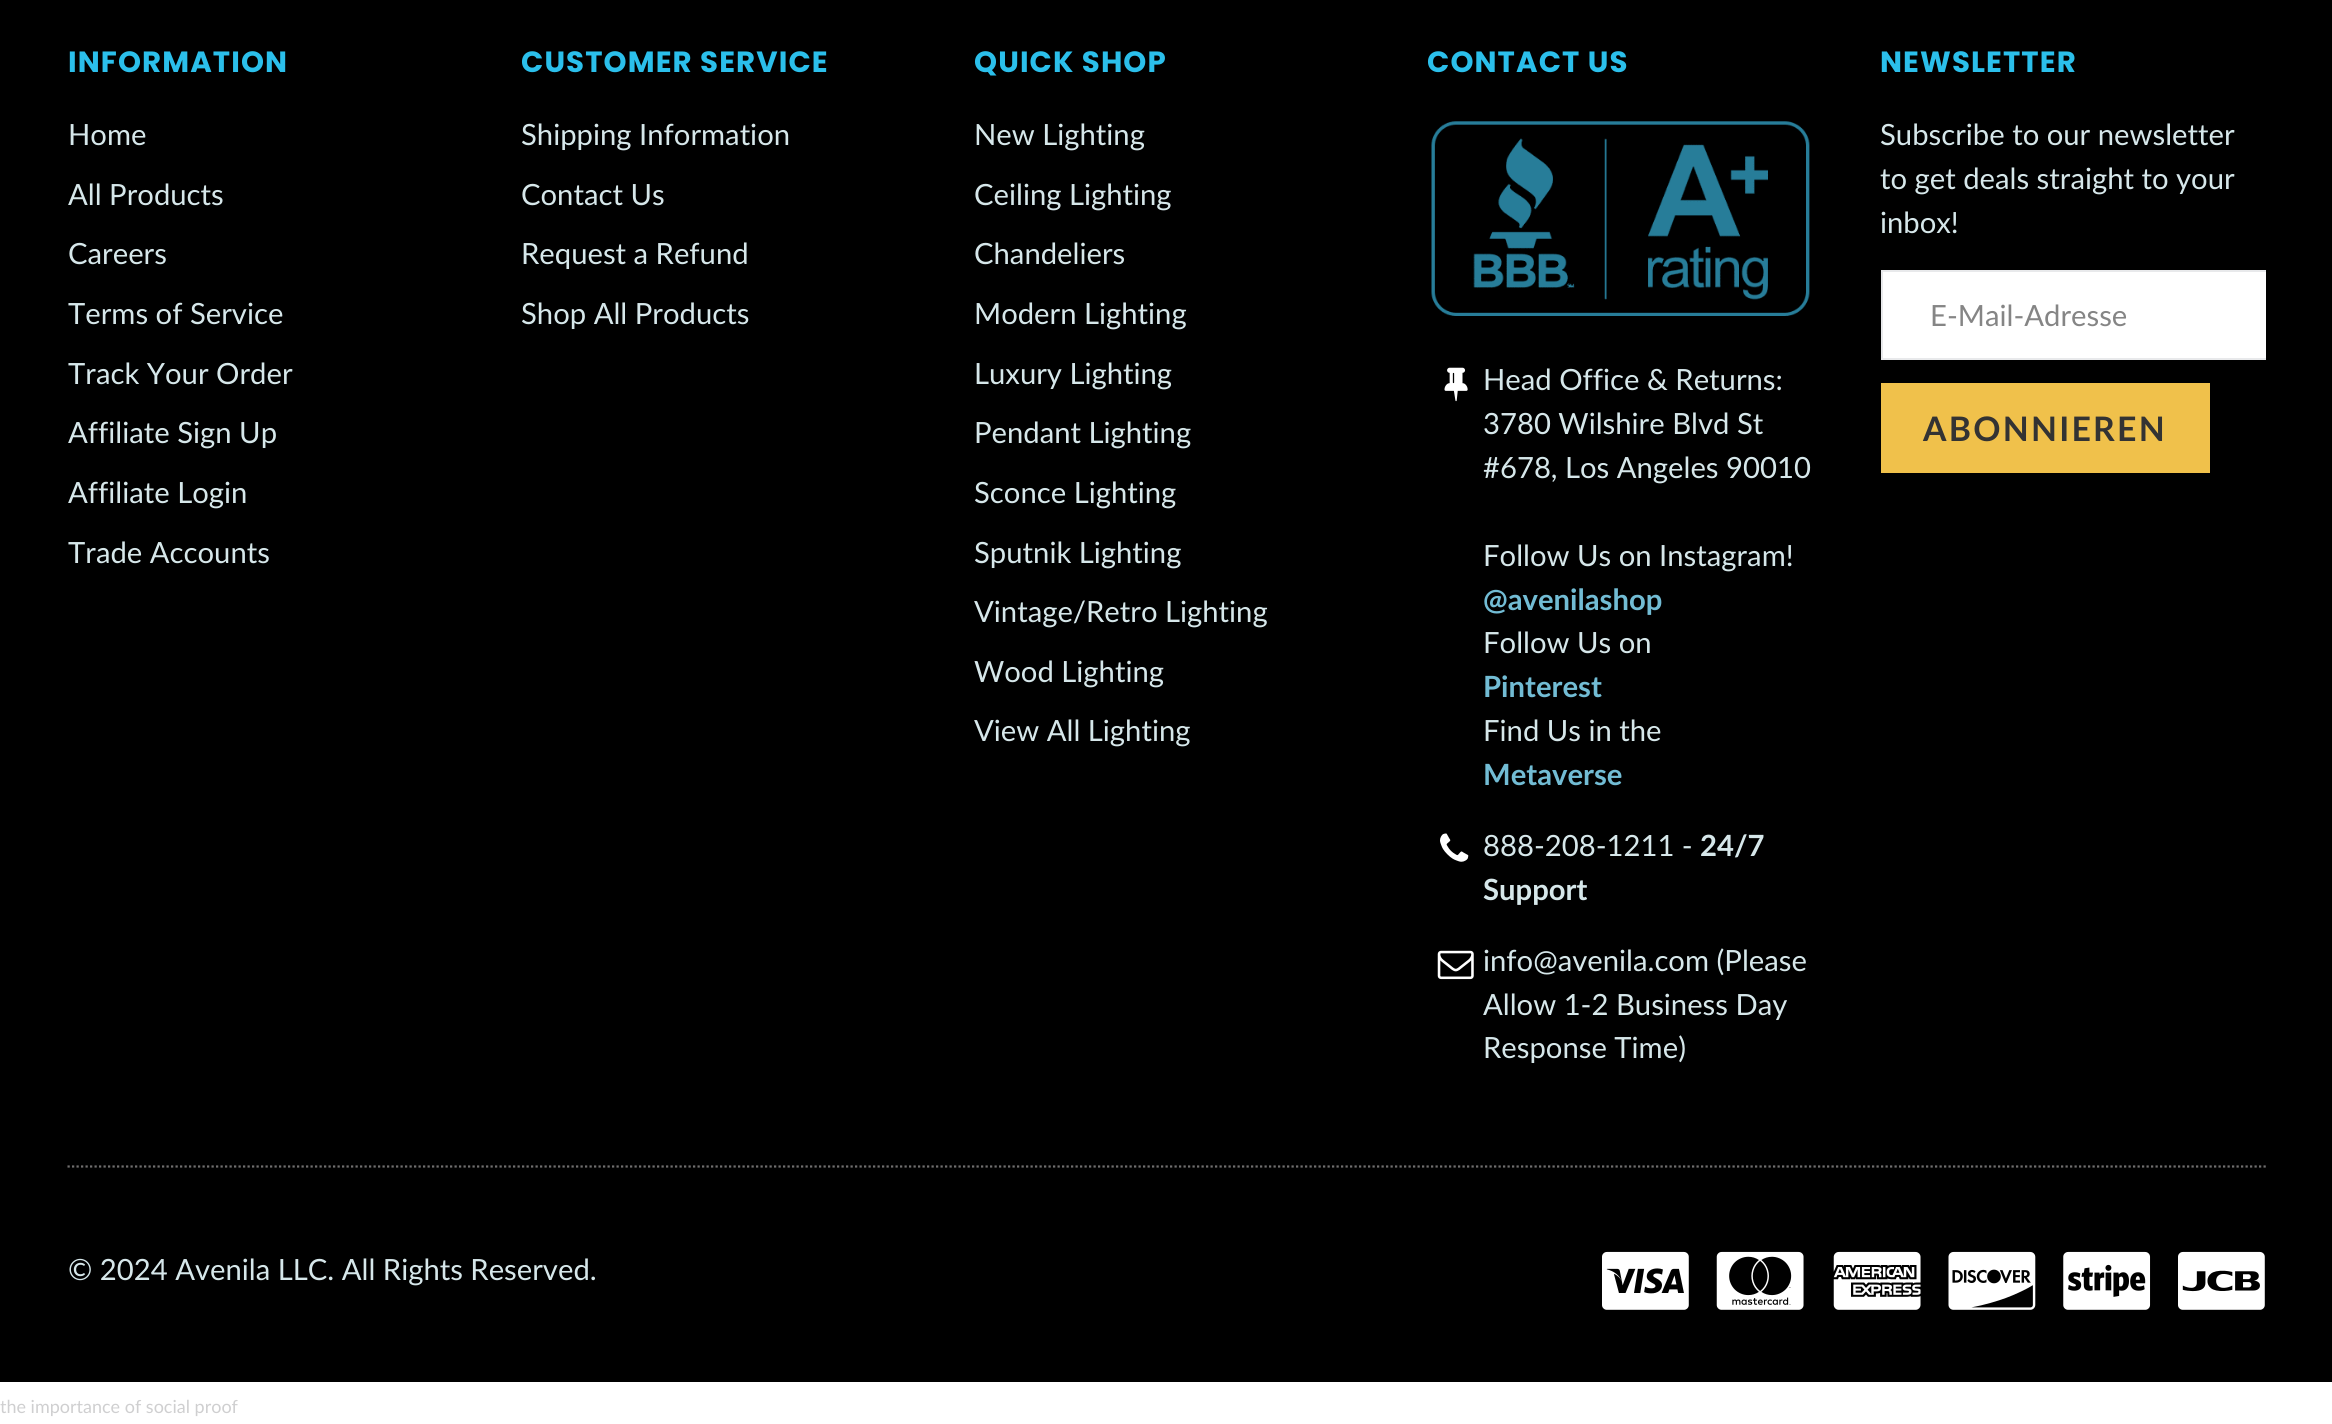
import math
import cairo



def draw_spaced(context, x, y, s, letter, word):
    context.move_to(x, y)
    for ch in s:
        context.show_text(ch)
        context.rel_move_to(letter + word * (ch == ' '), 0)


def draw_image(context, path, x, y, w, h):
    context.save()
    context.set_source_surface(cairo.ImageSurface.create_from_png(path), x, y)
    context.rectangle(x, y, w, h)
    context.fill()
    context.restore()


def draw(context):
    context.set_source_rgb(1, 1, 1)
    context.paint()
    context.set_source_rgb(0, 0, 0)
    context.rectangle(0, 0, 2332, 1382)
    context.fill()
    draw_image(context, "images/1.png", 1431, 121, 379, 195)
    draw_image(context, "images/2.png", 1444, 367, 24, 35)
    draw_image(context, "images/3.png", 1440, 833, 29, 29)
    draw_image(context, "images/4.png", 1437, 950, 37, 30)
    context.set_source_rgb(1, 1, 1)
    context.rectangle(1883, 272, 383, 86)
    context.fill()
    context.set_source_rgb(232 / 255, 233 / 255, 235 / 255)
    context.rectangle(1881, 270, 385, 2)
    context.fill()
    context.rectangle(1881, 358, 385, 2)
    context.fill()
    context.rectangle(1881, 270, 2, 90)
    context.fill()
    context.set_source_rgb(240 / 255, 193 / 255, 75 / 255)
    context.rectangle(1881, 383, 329, 90)
    context.fill()
    context.new_path()
    context.move_to(67.5, 1166.5)
    context.line_to(2266, 1166.5)
    context.set_source_rgb(111 / 255, 110 / 255, 110 / 255)
    context.set_line_width(2.2)
    context.set_dash([2.25, 2.25])
    context.stroke()
    draw_image(context, "images/5.png", 1602, 1251, 87, 59)
    draw_image(context, "images/6.png", 1716, 1251, 88, 59)
    draw_image(context, "images/7.png", 1833, 1251, 88, 59)
    draw_image(context, "images/8.png", 1948, 1251, 88, 59)
    draw_image(context, "images/9.png", 2063, 1251, 88, 59)
    draw_image(context, "images/10.png", 2178, 1251, 87, 59)
    context.select_font_face("Poppins", cairo.FontSlant.NORMAL, cairo.FontWeight.BOLD)
    context.set_font_size(29.25)
    context.set_source_rgb(43 / 255, 191 / 255, 235 / 255)
    draw_spaced(context, 68, 72, "INFORMATION", 1.1, 0)
    context.select_font_face("Lato")
    context.set_source_rgb(214 / 255, 231 / 255, 234 / 255)
    context.move_to(68, 145)
    context.show_text("Home")
    context.move_to(68, 205)
    context.show_text("All Products")
    context.move_to(68, 264)
    context.show_text("Careers")
    context.move_to(68, 324)
    context.show_text("Terms of Service")
    context.move_to(68, 384)
    context.show_text("Track Your Order")
    context.move_to(68, 443)
    context.show_text("Affiliate Sign Up")
    context.move_to(68, 503)
    context.show_text("Affiliate Login")
    context.move_to(68, 563)
    context.show_text("Trade Accounts")
    context.select_font_face("Poppins", cairo.FontSlant.NORMAL, cairo.FontWeight.BOLD)
    context.set_source_rgb(43 / 255, 191 / 255, 235 / 255)
    draw_spaced(context, 521, 72, "CUSTOMER SERVICE", 1.1, 0)
    context.select_font_face("Lato")
    context.set_source_rgb(214 / 255, 231 / 255, 234 / 255)
    context.move_to(521, 145)
    context.show_text("Shipping Information")
    context.move_to(521, 205)
    context.show_text("Contact Us")
    context.move_to(521, 264)
    context.show_text("Request a Refund")
    context.move_to(521, 324)
    context.show_text("Shop All Products")
    context.select_font_face("Poppins", cairo.FontSlant.NORMAL, cairo.FontWeight.BOLD)
    context.set_source_rgb(43 / 255, 191 / 255, 235 / 255)
    draw_spaced(context, 974, 72, "QUICK SHOP", 1.1, 0)
    context.select_font_face("Lato")
    context.set_source_rgb(214 / 255, 231 / 255, 234 / 255)
    context.move_to(974, 145)
    context.show_text("New Lighting")
    context.move_to(974, 205)
    context.show_text("Ceiling Lighting")
    context.move_to(974, 264)
    context.show_text("Chandeliers")
    context.move_to(974, 324)
    context.show_text("Modern Lighting")
    context.move_to(974, 384)
    context.show_text("Luxury Lighting")
    context.move_to(974, 443)
    context.show_text("Pendant Lighting")
    context.move_to(974, 503)
    context.show_text("Sconce Lighting")
    context.move_to(974, 563)
    context.show_text("Sputnik Lighting")
    context.move_to(974, 622)
    context.show_text("Vintage/Retro Lighting")
    context.move_to(974, 682)
    context.show_text("Wood Lighting")
    context.move_to(974, 741)
    context.show_text("View All Lighting")
    context.select_font_face("Poppins", cairo.FontSlant.NORMAL, cairo.FontWeight.BOLD)
    context.set_source_rgb(43 / 255, 191 / 255, 235 / 255)
    draw_spaced(context, 1427, 72, "CONTACT US", 1.1, 0)
    context.select_font_face("Lato")
    context.set_source_rgb(214 / 255, 231 / 255, 234 / 255)
    context.move_to(1483, 390)
    context.show_text("Head Office & Returns:")
    context.move_to(1483, 434)
    context.show_text("3780 Wilshire Blvd St")
    context.move_to(1483, 478)
    context.show_text("#678, Los Angeles 90010")
    context.move_to(1483, 566)
    context.show_text("Follow Us on Instagram!")
    context.select_font_face("Lato", cairo.FontSlant.NORMAL, cairo.FontWeight.BOLD)
    context.set_source_rgb(114 / 255, 188 / 255, 212 / 255)
    context.move_to(1483, 610)
    context.show_text("@avenilashop")
    context.select_font_face("Lato")
    context.set_source_rgb(214 / 255, 231 / 255, 234 / 255)
    context.move_to(1483, 653)
    context.show_text("Follow Us on")
    context.select_font_face("Lato", cairo.FontSlant.NORMAL, cairo.FontWeight.BOLD)
    context.set_source_rgb(114 / 255, 188 / 255, 212 / 255)
    context.move_to(1483, 697)
    context.show_text("Pinterest")
    context.select_font_face("Lato")
    context.set_source_rgb(214 / 255, 231 / 255, 234 / 255)
    context.move_to(1483, 741)
    context.show_text("Find Us in the")
    context.select_font_face("Lato", cairo.FontSlant.NORMAL, cairo.FontWeight.BOLD)
    context.set_source_rgb(114 / 255, 188 / 255, 212 / 255)
    context.move_to(1483, 785)
    context.show_text("Metaverse")
    context.select_font_face("Lato")
    context.set_source_rgb(214 / 255, 231 / 255, 234 / 255)
    context.move_to(1483, 856)
    context.show_text("888-208-1211 -")
    context.select_font_face("Lato", cairo.FontSlant.NORMAL, cairo.FontWeight.BOLD)
    context.move_to(1700, 856)
    context.show_text("24/7")
    context.move_to(1483, 900)
    context.show_text("Support")
    context.select_font_face("Lato")
    context.move_to(1483, 971)
    context.show_text("info@avenila.com (Please")
    context.move_to(1483, 1015)
    context.show_text("Allow 1-2 Business Day")
    context.move_to(1483, 1058)
    context.show_text("Response Time)")
    context.select_font_face("Poppins", cairo.FontSlant.NORMAL, cairo.FontWeight.BOLD)
    context.set_source_rgb(43 / 255, 191 / 255, 235 / 255)
    draw_spaced(context, 1880, 72, "NEWSLETTER", 1.1, 0)
    context.select_font_face("Lato")
    context.set_source_rgb(214 / 255, 231 / 255, 234 / 255)
    context.move_to(1880, 145)
    context.show_text("Subscribe to our newsletter")
    context.move_to(1880, 189)
    context.show_text("to get deals straight to your")
    context.move_to(1880, 233)
    context.show_text("inbox!")
    context.set_source_rgb(133 / 255, 133 / 255, 133 / 255)
    context.move_to(1930, 326)
    context.show_text("E-Mail-Adresse")
    context.select_font_face("Lato", cairo.FontSlant.NORMAL, cairo.FontWeight.BOLD)
    context.set_font_size(33.75)
    context.set_source_rgb(51 / 255, 51 / 255, 51 / 255)
    draw_spaced(context, 1923, 441, "ABONNIEREN", 2.25, 0)
    context.select_font_face("Lato")
    context.set_font_size(29.25)
    context.set_source_rgb(214 / 255, 231 / 255, 234 / 255)
    context.move_to(68, 1280)
    context.show_text("© 2024 Avenila LLC. All Rights Reserved.")
    context.set_font_size(18)
    context.set_source_rgb(207 / 255, 207 / 255, 208 / 255)
    context.move_to(0, 1413)
    context.show_text("the importance of social proof")


surface = cairo.ImageSurface(cairo.Format.RGB24, 2332, 1424)
context = cairo.Context(surface)
options = cairo.FontOptions()
options.set_hint_metrics(cairo.HintMetrics.OFF)
options.set_hint_style(cairo.HintStyle.NONE)
context.set_font_options(options)
context.set_miter_limit(4)
draw(context)
surface.write_to_png("out.png")
